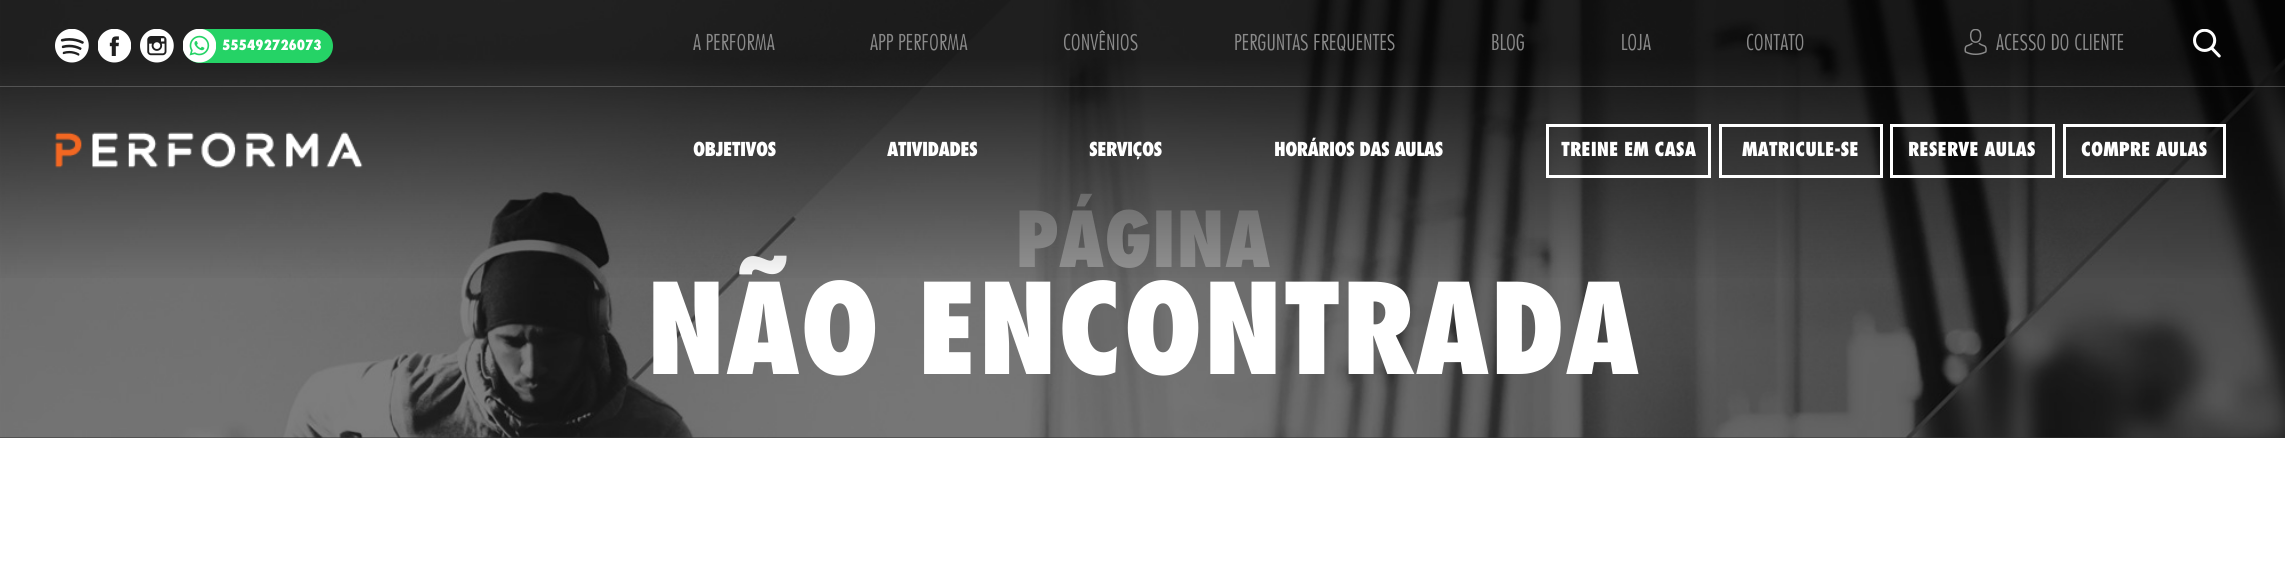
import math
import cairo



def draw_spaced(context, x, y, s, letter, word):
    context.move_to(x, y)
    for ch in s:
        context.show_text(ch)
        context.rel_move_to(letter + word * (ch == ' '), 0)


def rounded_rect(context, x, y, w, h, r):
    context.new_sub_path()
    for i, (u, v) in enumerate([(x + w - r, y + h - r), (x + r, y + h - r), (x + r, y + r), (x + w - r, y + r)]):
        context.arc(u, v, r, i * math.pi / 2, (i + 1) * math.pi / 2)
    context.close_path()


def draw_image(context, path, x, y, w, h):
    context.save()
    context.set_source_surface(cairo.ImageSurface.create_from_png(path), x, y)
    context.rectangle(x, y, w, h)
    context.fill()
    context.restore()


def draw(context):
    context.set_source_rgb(1, 1, 1)
    context.paint()
    context.set_source_rgb(51 / 255, 51 / 255, 51 / 255)
    context.rectangle(0, 437, 2285, 1)
    context.fill()
    draw_image(context, "images/8.png", 0, 0, 2285, 438)
    context.select_font_face("Futura ExtraBold")
    context.set_font_size(75)
    context.set_source_rgb(150 / 255, 150 / 255, 150 / 255)
    context.move_to(1015, 267)
    context.show_text("PÁGINA")
    context.set_font_size(122.5)
    context.set_source_rgb(1, 1, 1)
    context.move_to(646, 374)
    context.show_text("NÃO ENCONTRADA")
    gradient = cairo.LinearGradient(1143, 0, 1143, 285)
    gradient.add_color_stop_rgba(0.21, 0, 0, 0, 0.7)
    gradient.add_color_stop_rgba(1, 0, 0, 0, 0)
    context.set_source(gradient)
    context.rectangle(0, 0, 2285, 278)
    context.fill()
    context.select_font_face("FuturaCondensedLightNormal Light")
    context.set_font_size(21.25)
    context.set_source_rgb(138 / 255, 138 / 255, 138 / 255)
    draw_spaced(context, 1746, 50, "CONTATO", 0.25, 0)
    draw_spaced(context, 1621, 50, "LOJA", 0.25, 0)
    draw_spaced(context, 1491, 50, "BLOG", 0.25, 0)
    draw_spaced(context, 1234, 50, "PERGUNTAS FREQUENTES", 0.25, 0)
    draw_spaced(context, 1063, 50, "CONVÊNIOS", 0.25, 0)
    draw_spaced(context, 870, 50, "APP PERFORMA", 0.25, 0)
    draw_spaced(context, 693, 50, "A PERFORMA", 0.25, 0)
    context.select_font_face("Futura ExtraBold")
    context.set_font_size(18.75)
    context.set_source_rgb(1, 1, 1)
    draw_spaced(context, 1274, 156, "HORÁRIOS DAS AULAS", -0.6, 0)
    draw_spaced(context, 1089, 156, "SERVIÇOS", -0.6, 0)
    draw_spaced(context, 887, 156, "ATIVIDADES", -0.6, 0)
    draw_spaced(context, 693, 156, "OBJETIVOS", -0.6, 0)
    context.rectangle(2064.5, 125.5, 160, 51)
    context.set_line_width(3)
    context.stroke()
    context.move_to(2081, 156)
    context.show_text("COMPRE AULAS")
    context.rectangle(1891.5, 125.5, 162, 51)
    context.stroke()
    context.move_to(1908, 156)
    context.show_text("RESERVE AULAS")
    context.rectangle(1720.5, 125.5, 161, 51)
    context.stroke()
    context.move_to(1742, 156)
    context.show_text("MATRICULE-SE")
    context.rectangle(1547.5, 125.5, 162, 51)
    context.stroke()
    context.move_to(1561, 156)
    context.show_text("TREINE EM CASA")
    draw_image(context, "images/1.png", 1964, 29, 23, 26)
    context.select_font_face("FuturaCondensedLightNormal Light")
    context.set_font_size(21.25)
    context.set_source_rgb(138 / 255, 138 / 255, 138 / 255)
    draw_spaced(context, 1996, 50, "ACESSO DO CLIENTE", 0.25, 0)
    draw_image(context, "images/6.png", 2193, 29, 28, 29)
    draw_image(context, "images/7.png", 55, 132, 308, 36)
    context.set_source_rgb(37 / 255, 211 / 255, 102 / 255)
    rounded_rect(context, 183, 29, 150, 34, 17)
    context.fill()
    draw_image(context, "images/5.png", 183, 29, 33, 34)
    draw_image(context, "images/4.png", 140, 29, 34, 34)
    draw_image(context, "images/3.png", 98, 29, 33, 34)
    draw_image(context, "images/2.png", 55, 29, 34, 34)
    context.select_font_face("Futura ExtraBold")
    context.set_font_size(13.75)
    context.set_source_rgb(1, 1, 1)
    context.move_to(222, 50)
    context.show_text("555492726073")
    context.set_source_rgba(1, 1, 1, 0.2)
    context.rectangle(0, 86, 2285, 1)
    context.fill()


surface = cairo.ImageSurface(cairo.Format.RGB24, 2285, 566)
context = cairo.Context(surface)
options = cairo.FontOptions()
options.set_hint_metrics(cairo.HintMetrics.OFF)
options.set_hint_style(cairo.HintStyle.NONE)
context.set_font_options(options)
context.set_miter_limit(4)
draw(context)
surface.write_to_png("out.png")
